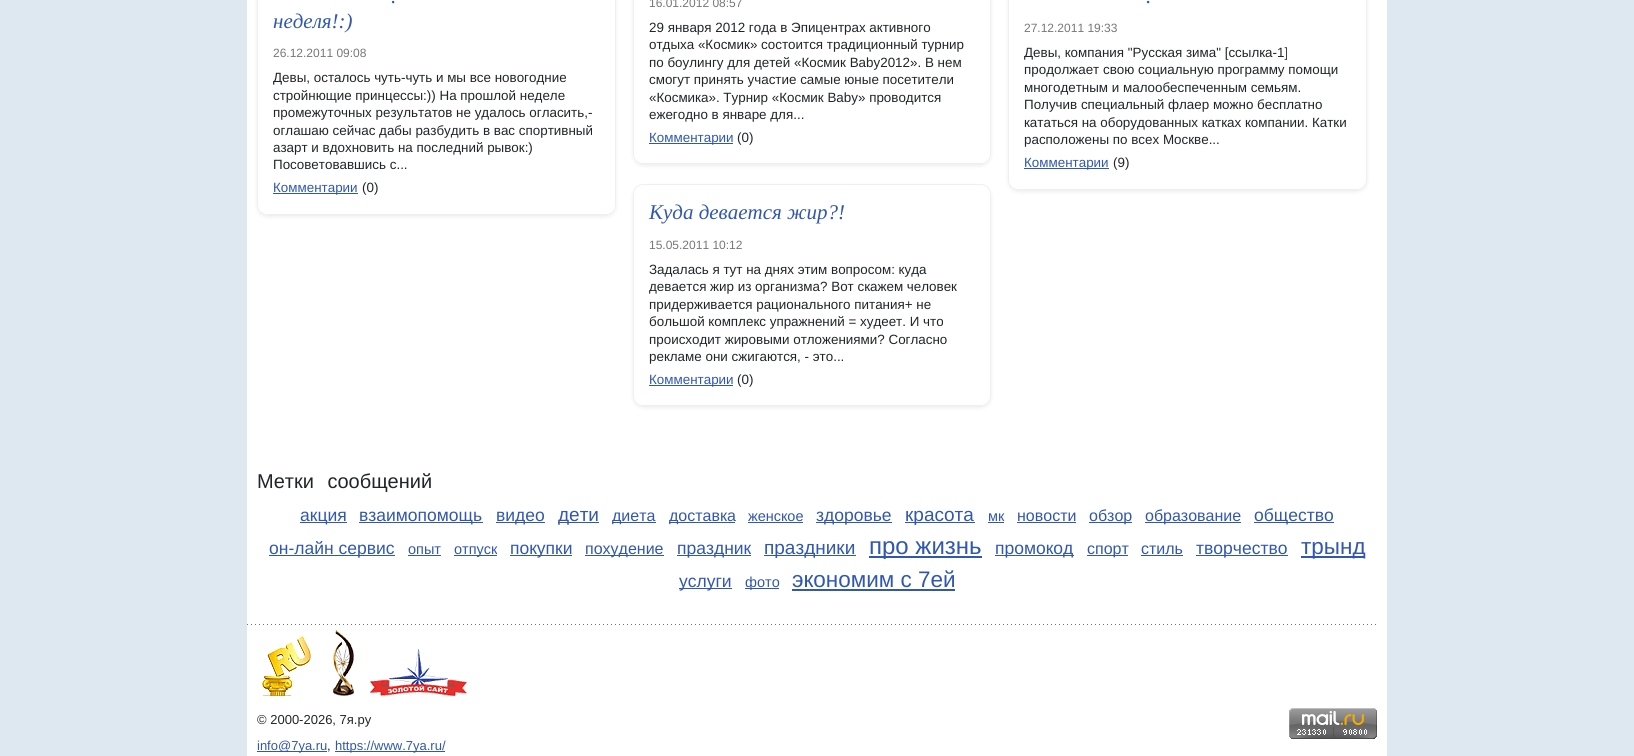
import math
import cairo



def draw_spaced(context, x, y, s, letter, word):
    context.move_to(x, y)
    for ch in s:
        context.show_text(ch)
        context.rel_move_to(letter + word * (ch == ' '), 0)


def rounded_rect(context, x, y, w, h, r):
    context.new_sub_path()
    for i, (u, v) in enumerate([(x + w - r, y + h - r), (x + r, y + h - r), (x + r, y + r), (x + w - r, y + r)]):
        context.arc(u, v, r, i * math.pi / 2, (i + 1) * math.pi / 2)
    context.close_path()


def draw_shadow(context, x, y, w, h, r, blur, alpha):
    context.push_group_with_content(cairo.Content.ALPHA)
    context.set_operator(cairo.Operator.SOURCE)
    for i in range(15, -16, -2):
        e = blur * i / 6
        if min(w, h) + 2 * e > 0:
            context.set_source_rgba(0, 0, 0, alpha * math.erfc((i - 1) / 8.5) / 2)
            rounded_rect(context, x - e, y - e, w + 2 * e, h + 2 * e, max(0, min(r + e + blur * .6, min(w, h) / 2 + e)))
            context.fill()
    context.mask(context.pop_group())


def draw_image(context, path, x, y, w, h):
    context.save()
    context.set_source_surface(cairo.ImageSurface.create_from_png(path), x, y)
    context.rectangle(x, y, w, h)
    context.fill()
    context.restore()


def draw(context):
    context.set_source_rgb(222 / 255, 232 / 255, 241 / 255)
    context.paint()
    context.set_source_rgb(1, 1, 1)
    context.rectangle(247, 0, 1140, 756)
    context.fill()
    context.save()
    context.set_fill_rule(cairo.FillRule.EVEN_ODD)
    context.new_path()
    context.move_to(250, 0)
    context.line_to(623, 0)
    context.line_to(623, 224)
    context.line_to(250, 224)
    context.close_path()
    context.move_to(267, -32)
    context.line_to(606, -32)
    context.curve_to(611.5, -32, 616, -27.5, 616, -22)
    context.line_to(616, 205)
    context.curve_to(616, 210.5, 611.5, 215, 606, 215)
    context.line_to(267, 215)
    context.curve_to(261.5, 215, 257, 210.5, 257, 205)
    context.line_to(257, -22)
    context.curve_to(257, -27.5, 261.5, -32, 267, -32)
    context.close_path()
    context.clip()
    context.set_source_rgb(0, 0, 0)
    draw_shadow(context, 257, -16, 359, 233, 10, 2, 0.07)
    context.restore()
    rounded_rect(context, 257.5, -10.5, 358, 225, 9.5)
    context.set_source_rgb(239 / 255, 239 / 255, 239 / 255)
    context.set_line_width(1)
    context.stroke()
    context.set_source_rgb(49 / 255, 87 / 255, 176 / 255)
    context.rectangle(273, 193, 85, 1)
    context.fill()
    context.save()
    context.set_fill_rule(cairo.FillRule.EVEN_ODD)
    context.new_path()
    context.move_to(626, 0)
    context.line_to(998, 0)
    context.line_to(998, 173)
    context.line_to(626, 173)
    context.close_path()
    context.move_to(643, -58)
    context.line_to(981, -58)
    context.curve_to(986.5, -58, 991, -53.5, 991, -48)
    context.line_to(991, 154)
    context.curve_to(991, 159.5, 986.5, 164, 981, 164)
    context.line_to(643, 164)
    context.curve_to(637.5, 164, 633, 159.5, 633, 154)
    context.line_to(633, -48)
    context.curve_to(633, -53.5, 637.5, -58, 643, -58)
    context.close_path()
    context.clip()
    context.set_source_rgb(0, 0, 0)
    draw_shadow(context, 633, -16, 358, 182, 10, 2, 0.07)
    context.restore()
    rounded_rect(context, 633.5, -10.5, 357, 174, 9.5)
    context.set_source_rgb(239 / 255, 239 / 255, 239 / 255)
    context.stroke()
    context.set_source_rgb(49 / 255, 87 / 255, 176 / 255)
    context.rectangle(649, 143, 84, 1)
    context.fill()
    context.save()
    context.set_fill_rule(cairo.FillRule.EVEN_ODD)
    context.new_path()
    context.move_to(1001, 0)
    context.line_to(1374, 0)
    context.line_to(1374, 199)
    context.line_to(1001, 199)
    context.close_path()
    context.move_to(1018, -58)
    context.line_to(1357, -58)
    context.curve_to(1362.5, -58, 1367, -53.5, 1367, -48)
    context.line_to(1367, 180)
    context.curve_to(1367, 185.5, 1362.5, 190, 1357, 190)
    context.line_to(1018, 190)
    context.curve_to(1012.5, 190, 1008, 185.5, 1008, 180)
    context.line_to(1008, -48)
    context.curve_to(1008, -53.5, 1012.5, -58, 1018, -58)
    context.close_path()
    context.clip()
    context.set_source_rgb(0, 0, 0)
    draw_shadow(context, 1008, -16, 359, 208, 10, 2, 0.07)
    context.restore()
    rounded_rect(context, 1008.5, -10.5, 358, 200, 9.5)
    context.set_source_rgb(239 / 255, 239 / 255, 239 / 255)
    context.stroke()
    context.set_source_rgb(49 / 255, 87 / 255, 176 / 255)
    context.rectangle(1024, 168, 85, 1)
    context.fill()
    context.save()
    context.set_fill_rule(cairo.FillRule.EVEN_ODD)
    context.new_path()
    context.move_to(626, 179)
    context.line_to(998, 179)
    context.line_to(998, 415)
    context.line_to(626, 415)
    context.close_path()
    context.move_to(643, 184)
    context.line_to(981, 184)
    context.curve_to(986.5, 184, 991, 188.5, 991, 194)
    context.line_to(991, 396)
    context.curve_to(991, 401.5, 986.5, 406, 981, 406)
    context.line_to(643, 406)
    context.curve_to(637.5, 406, 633, 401.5, 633, 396)
    context.line_to(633, 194)
    context.curve_to(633, 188.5, 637.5, 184, 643, 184)
    context.close_path()
    context.clip()
    context.set_source_rgb(0, 0, 0)
    draw_shadow(context, 633, 186, 358, 222, 10, 2, 0.07)
    context.restore()
    rounded_rect(context, 633.5, 184.5, 357, 221, 9.5)
    context.set_source_rgb(239 / 255, 239 / 255, 239 / 255)
    context.stroke()
    context.set_source_rgb(49 / 255, 87 / 255, 176 / 255)
    context.rectangle(649, 385, 84, 1)
    context.fill()
    context.rectangle(300, 522, 47, 1)
    context.fill()
    context.rectangle(359, 522, 124, 1)
    context.fill()
    context.rectangle(496, 522, 49, 1)
    context.fill()
    context.rectangle(558, 522, 41, 1)
    context.fill()
    context.rectangle(612, 522, 44, 1)
    context.fill()
    context.rectangle(669, 522, 66, 1)
    context.fill()
    context.rectangle(748, 522, 55, 1)
    context.fill()
    context.rectangle(816, 522, 76, 1)
    context.fill()
    context.rectangle(905, 522, 70, 1)
    context.fill()
    context.rectangle(988, 522, 16, 1)
    context.fill()
    context.rectangle(1017, 522, 59, 1)
    context.fill()
    context.rectangle(1089, 522, 43, 1)
    context.fill()
    context.rectangle(1145, 522, 96, 1)
    context.fill()
    context.rectangle(1254, 522, 80, 1)
    context.fill()
    context.rectangle(269, 555, 126, 1)
    context.fill()
    context.rectangle(408, 555, 33, 1)
    context.fill()
    context.rectangle(454, 555, 43, 1)
    context.fill()
    context.rectangle(510, 555, 62, 1)
    context.fill()
    context.rectangle(585, 555, 79, 1)
    context.fill()
    context.rectangle(677, 555, 74, 1)
    context.fill()
    context.rectangle(764, 555, 92, 1)
    context.fill()
    context.rectangle(869, 556, 113, 2)
    context.fill()
    context.rectangle(995, 555, 79, 1)
    context.fill()
    context.rectangle(1087, 555, 41, 1)
    context.fill()
    context.rectangle(1141, 555, 42, 1)
    context.fill()
    context.rectangle(1196, 555, 92, 1)
    context.fill()
    context.rectangle(1301, 556, 64, 2)
    context.fill()
    context.rectangle(679, 588, 53, 1)
    context.fill()
    context.rectangle(745, 588, 34, 1)
    context.fill()
    context.rectangle(792, 589, 163, 2)
    context.fill()
    draw_image(context, "images/1.png", 247, 624, 1129, 1)
    draw_image(context, "images/2.png", 262, 636, 50, 60)
    draw_image(context, "images/3.png", 333, 630, 21, 66)
    draw_image(context, "images/4.png", 370, 649, 97, 47)
    context.rectangle(257, 751, 70, 1)
    context.fill()
    context.rectangle(335, 751, 110, 1)
    context.fill()
    draw_image(context, "images/5.png", 1289, 708, 88, 31)
    context.select_font_face("Liberation Serif", cairo.FontSlant.ITALIC)
    context.set_font_size(21)
    context.move_to(391, 3)
    context.show_text(".")
    context.move_to(273, 28)
    context.show_text("неделя!:)")
    context.select_font_face("Liberation Sans")
    context.set_font_size(12)
    context.set_source_rgb(119 / 255, 119 / 255, 119 / 255)
    context.move_to(273, 57)
    context.show_text("26.12.2011 09:08")
    context.set_font_size(13.4)
    context.set_source_rgb(33 / 255, 37 / 255, 41 / 255)
    context.move_to(273, 82)
    context.show_text("Девы, осталось чуть-чуть и мы все новогодние")
    context.move_to(273, 100)
    context.show_text("стройнющие принцессы:)) На прошлой неделе")
    context.move_to(273, 117)
    context.show_text("промежуточных результатов не удалось огласить,-")
    context.move_to(273, 135)
    context.show_text("оглашаю сейчас дабы разбудить в вас спортивный")
    context.move_to(273, 152)
    context.show_text("азарт и вдохновить на последний рывок:)")
    context.move_to(273, 169)
    context.show_text("Посоветовавшись с...")
    context.set_source_rgb(49 / 255, 87 / 255, 176 / 255)
    context.move_to(273, 192)
    context.show_text("Комментарии")
    context.set_source_rgb(33 / 255, 37 / 255, 41 / 255)
    context.move_to(362, 192)
    context.show_text("(0)")
    context.set_font_size(12)
    context.set_source_rgb(119 / 255, 119 / 255, 119 / 255)
    context.move_to(649, 7)
    context.show_text("16.01.2012 08:57")
    context.set_font_size(13.4)
    context.set_source_rgb(33 / 255, 37 / 255, 41 / 255)
    context.move_to(649, 32)
    context.show_text("29 января 2012 года в Эпицентрах активного")
    context.move_to(649, 49)
    context.show_text("отдыха «Космик» состоится традиционный турнир")
    context.move_to(649, 67)
    context.show_text("по боулингу для детей «Космик Baby2012». В нем")
    context.move_to(649, 84)
    context.show_text("смогут принять участие самые юные посетители")
    context.move_to(649, 102)
    context.show_text("«Космика». Турнир «Космик Baby» проводится")
    context.move_to(649, 119)
    context.show_text("ежегодно в январе для...")
    context.set_source_rgb(49 / 255, 87 / 255, 176 / 255)
    context.move_to(649, 142)
    context.show_text("Комментарии")
    context.set_source_rgb(33 / 255, 37 / 255, 41 / 255)
    context.move_to(737, 142)
    context.show_text("(0)")
    context.select_font_face("Liberation Serif", cairo.FontSlant.ITALIC)
    context.set_font_size(21)
    context.set_source_rgb(49 / 255, 87 / 255, 176 / 255)
    context.move_to(1146, 3)
    context.show_text(".")
    context.select_font_face("Liberation Sans")
    context.set_font_size(12)
    context.set_source_rgb(119 / 255, 119 / 255, 119 / 255)
    context.move_to(1024, 32)
    context.show_text("27.12.2011 19:33")
    context.set_font_size(13.4)
    context.set_source_rgb(33 / 255, 37 / 255, 41 / 255)
    context.move_to(1024, 57)
    context.show_text("Девы, компания \"Русская зима\" [ссылка-1]")
    context.move_to(1024, 74)
    context.show_text("продолжает свою социальную программу помощи")
    context.move_to(1024, 92)
    context.show_text("многодетным и малообеспеченным семьям.")
    context.move_to(1024, 109)
    context.show_text("Получив специальный флаер можно бесплатно")
    context.move_to(1024, 127)
    context.show_text("кататься на оборудованных катках компании. Катки")
    context.move_to(1024, 144)
    context.show_text("расположены по всех Москве...")
    context.set_source_rgb(49 / 255, 87 / 255, 176 / 255)
    context.move_to(1024, 167)
    context.show_text("Комментарии")
    context.set_source_rgb(33 / 255, 37 / 255, 41 / 255)
    context.move_to(1113, 167)
    context.show_text("(9)")
    context.select_font_face("Liberation Serif", cairo.FontSlant.ITALIC)
    context.set_font_size(21)
    context.set_source_rgb(49 / 255, 87 / 255, 176 / 255)
    context.move_to(649, 219)
    context.show_text("Куда девается жир?!")
    context.select_font_face("Liberation Sans")
    context.set_font_size(12)
    context.set_source_rgb(119 / 255, 119 / 255, 119 / 255)
    context.move_to(649, 249)
    context.show_text("15.05.2011 10:12")
    context.set_font_size(13.4)
    context.set_source_rgb(33 / 255, 37 / 255, 41 / 255)
    context.move_to(649, 274)
    context.show_text("Задалась я тут на днях этим вопросом: куда")
    context.move_to(649, 291)
    context.show_text("девается жир из организма? Вот скажем человек")
    context.move_to(649, 309)
    context.show_text("придерживается рационального питания+ не")
    context.move_to(649, 326)
    context.show_text("большой комплекс упражнений = худеет. И что")
    context.move_to(649, 344)
    context.show_text("происходит жировыми отложениями? Согласно")
    context.move_to(649, 361)
    context.show_text("рекламе они сжигаются, - это...")
    context.set_source_rgb(49 / 255, 87 / 255, 176 / 255)
    context.move_to(649, 384)
    context.show_text("Комментарии")
    context.set_source_rgb(33 / 255, 37 / 255, 41 / 255)
    context.move_to(737, 384)
    context.show_text("(0)")
    context.set_font_size(20)
    draw_spaced(context, 257, 488, "Метки сообщений", 0, 8)
    context.set_font_size(17.5)
    context.set_source_rgb(49 / 255, 87 / 255, 176 / 255)
    context.move_to(300, 521)
    context.show_text("акция")
    context.move_to(359, 521)
    context.show_text("взаимопомощь")
    context.move_to(496, 521)
    context.show_text("видео")
    context.set_font_size(19)
    context.move_to(558, 521)
    context.show_text("дети")
    context.set_font_size(16)
    context.move_to(612, 521)
    context.show_text("диета")
    context.move_to(669, 521)
    context.show_text("доставка")
    context.set_font_size(14.5)
    context.move_to(748, 521)
    context.show_text("женское")
    context.set_font_size(17.5)
    context.move_to(816, 521)
    context.show_text("здоровье")
    context.set_font_size(19)
    context.move_to(905, 521)
    context.show_text("красота")
    context.set_font_size(14.5)
    context.move_to(988, 521)
    context.show_text("мк")
    context.set_font_size(16)
    context.move_to(1017, 521)
    context.show_text("новости")
    context.move_to(1089, 521)
    context.show_text("обзор")
    context.move_to(1145, 521)
    context.show_text("образование")
    context.set_font_size(17.5)
    context.move_to(1254, 521)
    context.show_text("общество")
    context.move_to(269, 554)
    context.show_text("он-лайн сервис")
    context.set_font_size(14.5)
    context.move_to(408, 554)
    context.show_text("опыт")
    context.move_to(454, 554)
    context.show_text("отпуск")
    context.set_font_size(17.5)
    context.move_to(510, 554)
    context.show_text("покупки")
    context.set_font_size(16)
    context.move_to(585, 554)
    context.show_text("похудение")
    context.set_font_size(17.5)
    context.move_to(677, 554)
    context.show_text("праздник")
    context.set_font_size(19)
    context.move_to(764, 554)
    context.show_text("праздники")
    context.set_font_size(24)
    context.move_to(869, 554)
    context.show_text("про жизнь")
    context.set_font_size(17.5)
    context.move_to(995, 554)
    context.show_text("промокод")
    context.set_font_size(16)
    context.move_to(1087, 554)
    context.show_text("спорт")
    context.move_to(1141, 554)
    context.show_text("стиль")
    context.set_font_size(17.5)
    context.move_to(1196, 554)
    context.show_text("творчество")
    context.set_font_size(22.5)
    context.move_to(1301, 554)
    context.show_text("трынд")
    context.set_font_size(17.5)
    context.move_to(679, 587)
    context.show_text("услуги")
    context.set_font_size(14.5)
    context.move_to(745, 587)
    context.show_text("фото")
    context.set_font_size(22.5)
    context.move_to(792, 587)
    context.show_text("экономим с 7ей")
    context.set_font_size(13)
    context.set_source_rgb(33 / 255, 37 / 255, 41 / 255)
    context.move_to(257, 724)
    context.show_text("© 2000-2026, 7я.ру")
    context.set_source_rgb(49 / 255, 87 / 255, 176 / 255)
    context.move_to(257, 750)
    context.show_text("info@7ya.ru")
    context.set_source_rgb(33 / 255, 37 / 255, 41 / 255)
    context.move_to(327, 750)
    context.show_text(",")
    context.set_source_rgb(49 / 255, 87 / 255, 176 / 255)
    context.move_to(335, 750)
    context.show_text("https://www.7ya.ru/")


surface = cairo.ImageSurface(cairo.Format.RGB24, 1634, 756)
context = cairo.Context(surface)
options = cairo.FontOptions()
options.set_hint_metrics(cairo.HintMetrics.OFF)
options.set_hint_style(cairo.HintStyle.NONE)
context.set_font_options(options)
context.set_miter_limit(4)
draw(context)
surface.write_to_png("out.png")
